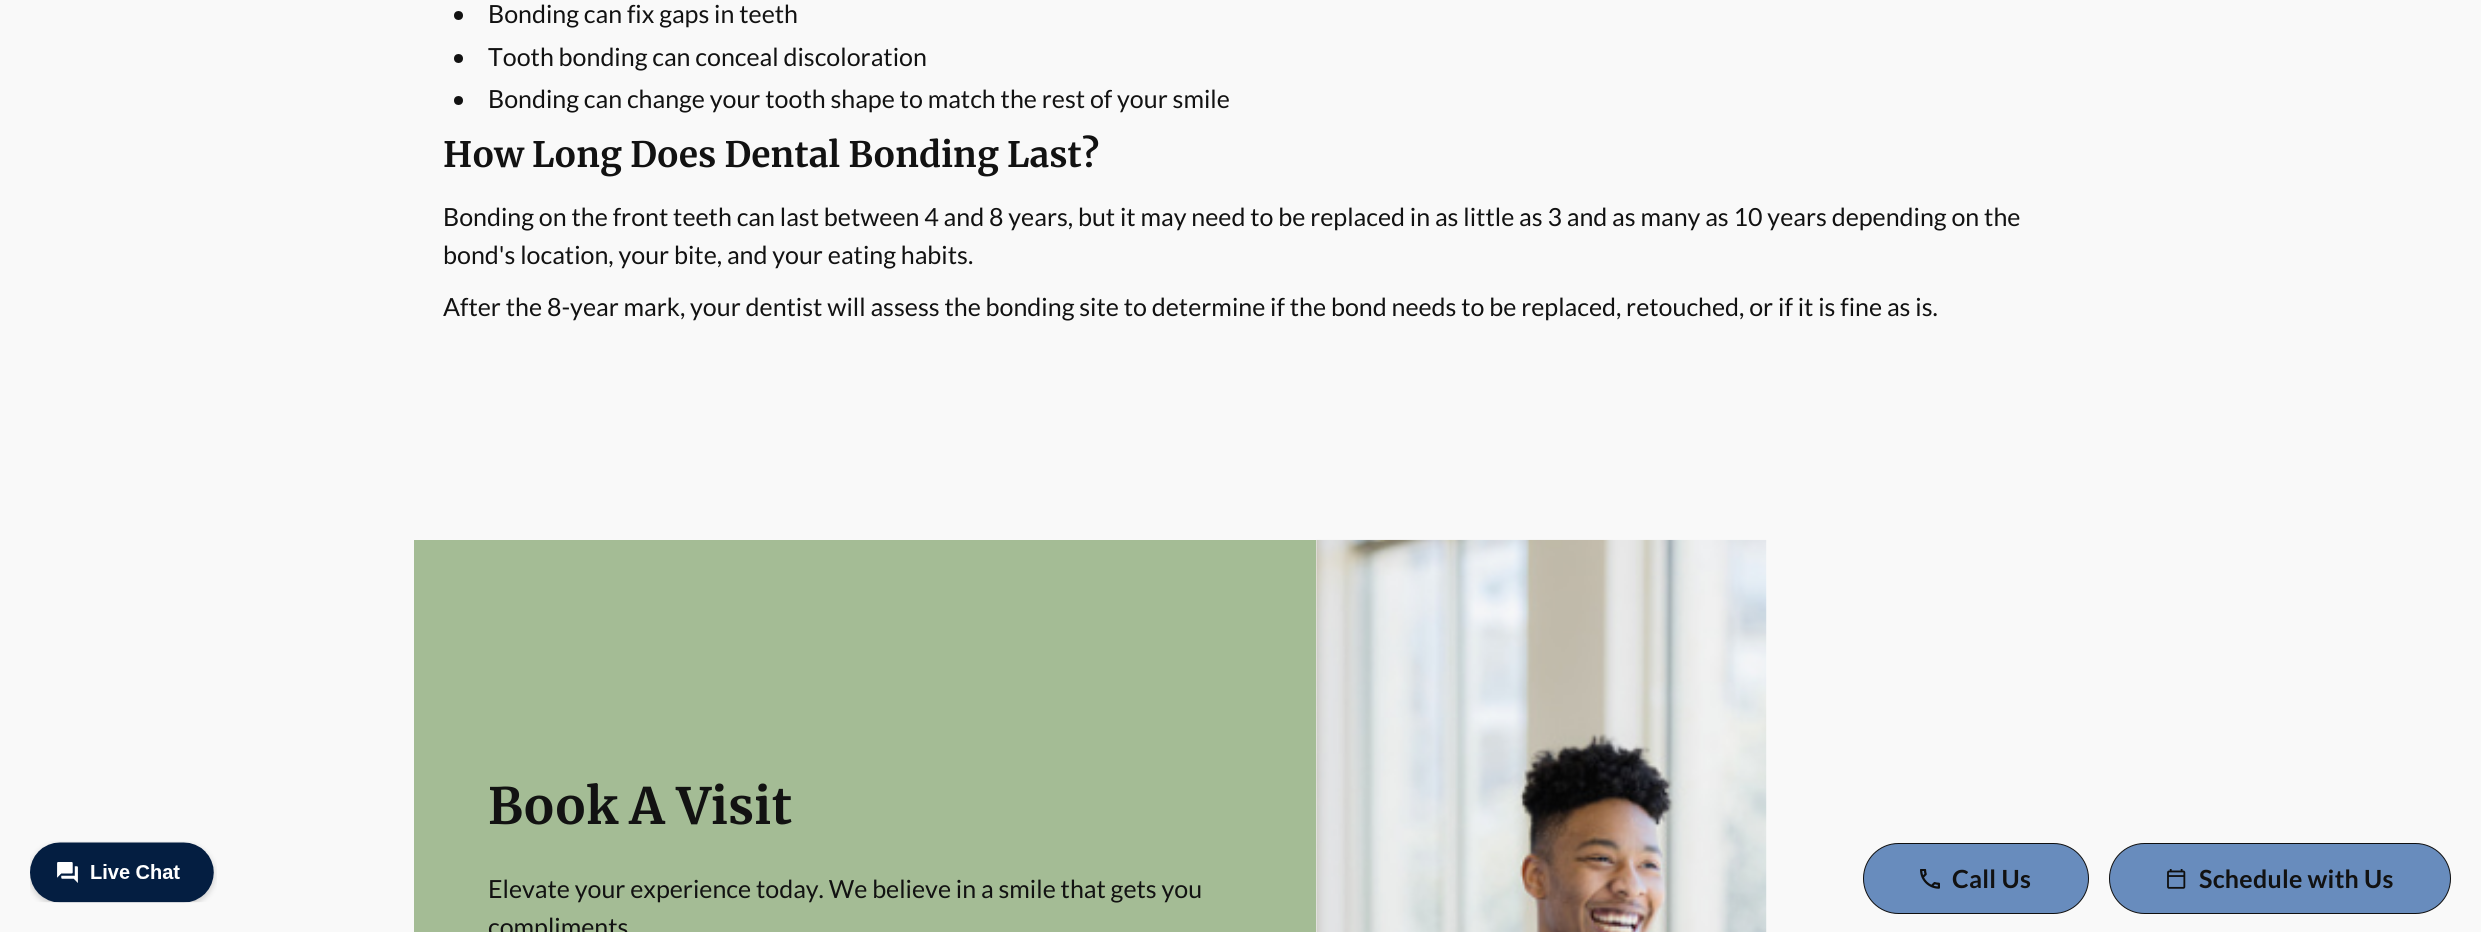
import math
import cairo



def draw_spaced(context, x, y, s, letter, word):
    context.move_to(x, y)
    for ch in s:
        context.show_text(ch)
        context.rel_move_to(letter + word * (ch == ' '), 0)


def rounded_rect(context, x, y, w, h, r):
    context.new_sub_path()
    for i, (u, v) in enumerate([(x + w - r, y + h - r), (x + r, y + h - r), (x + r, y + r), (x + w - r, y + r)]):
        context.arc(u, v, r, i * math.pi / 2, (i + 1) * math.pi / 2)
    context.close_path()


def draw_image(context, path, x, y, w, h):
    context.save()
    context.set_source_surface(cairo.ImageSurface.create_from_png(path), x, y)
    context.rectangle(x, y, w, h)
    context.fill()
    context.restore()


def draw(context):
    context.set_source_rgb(249 / 255, 249 / 255, 249 / 255)
    context.paint()
    draw_image(context, "images/1.png", 30, 841, 187, 62)
    context.set_source_rgb(18 / 255, 18 / 255, 18 / 255)
    context.arc(458.5, 15.5, 4.5, 0, 2 * math.pi)
    context.fill()
    context.arc(458.5, 58.5, 4.5, 0, 2 * math.pi)
    context.fill()
    context.arc(458.5, 100.5, 4.5, 0, 2 * math.pi)
    context.fill()
    context.set_source_rgb(164 / 255, 188 / 255, 149 / 255)
    context.rectangle(414, 540, 902, 392)
    context.fill()
    draw_image(context, "images/2.png", 1316, 539, 451, 393)
    context.set_source_rgb(104 / 255, 140 / 255, 189 / 255)
    rounded_rect(context, 1863.5, 843.5, 225, 70, 35)
    context.fill_preserve()
    context.set_source_rgb(15 / 255, 15 / 255, 15 / 255)
    context.set_line_width(1)
    context.stroke()
    draw_image(context, "images/3.png", 1920, 869, 20, 20)
    context.set_source_rgb(104 / 255, 140 / 255, 189 / 255)
    rounded_rect(context, 2109.5, 843.5, 341, 70, 35)
    context.fill_preserve()
    context.set_source_rgb(15 / 255, 15 / 255, 15 / 255)
    context.stroke()
    draw_image(context, "images/4.png", 2167, 869, 19, 20)
    context.select_font_face("Lato")
    context.set_font_size(25)
    context.set_source_rgb(18 / 255, 18 / 255, 18 / 255)
    context.move_to(488, 23)
    context.show_text("Bonding can fix gaps in teeth")
    context.move_to(488, 66)
    context.show_text("Tooth bonding can conceal discoloration")
    context.move_to(488, 108)
    context.show_text("Bonding can change your tooth shape to match the rest of your smile")
    context.select_font_face("Merriweather", cairo.FontSlant.NORMAL, cairo.FontWeight.BOLD)
    context.set_font_size(35)
    context.move_to(443, 167)
    context.show_text("How Long Does Dental Bonding Last?")
    context.select_font_face("Lato")
    context.set_font_size(25)
    context.move_to(443, 226)
    context.show_text("Bonding on the front teeth can last between 4 and 8 years, but it may need to be replaced in as little as 3 and as many as 10 years depending on the")
    context.move_to(443, 264)
    context.show_text("bond's location, your bite, and your eating habits.")
    context.move_to(443, 316)
    context.show_text("After the 8-year mark, your dentist will assess the bonding site to determine if the bond needs to be replaced, retouched, or if it is fine as is.")
    context.select_font_face("Merriweather", cairo.FontSlant.NORMAL, cairo.FontWeight.BOLD)
    context.set_font_size(50)
    context.move_to(488, 824)
    context.show_text("Book A Visit")
    context.select_font_face("Lato")
    context.set_font_size(25)
    context.move_to(488, 898)
    context.show_text("Elevate your experience today. We believe in a smile that gets you")
    context.move_to(488, 936)
    context.show_text("compliments")
    context.select_font_face("Lato", cairo.FontSlant.NORMAL, cairo.FontWeight.BOLD)
    draw_spaced(context, 1952, 888, "Call Us", 0.25, 0)
    draw_spaced(context, 2199, 888, "Schedule with Us", 0.25, 0)


surface = cairo.ImageSurface(cairo.Format.RGB24, 2481, 932)
context = cairo.Context(surface)
options = cairo.FontOptions()
options.set_hint_metrics(cairo.HintMetrics.OFF)
options.set_hint_style(cairo.HintStyle.NONE)
context.set_font_options(options)
context.set_miter_limit(4)
draw(context)
surface.write_to_png("out.png")
